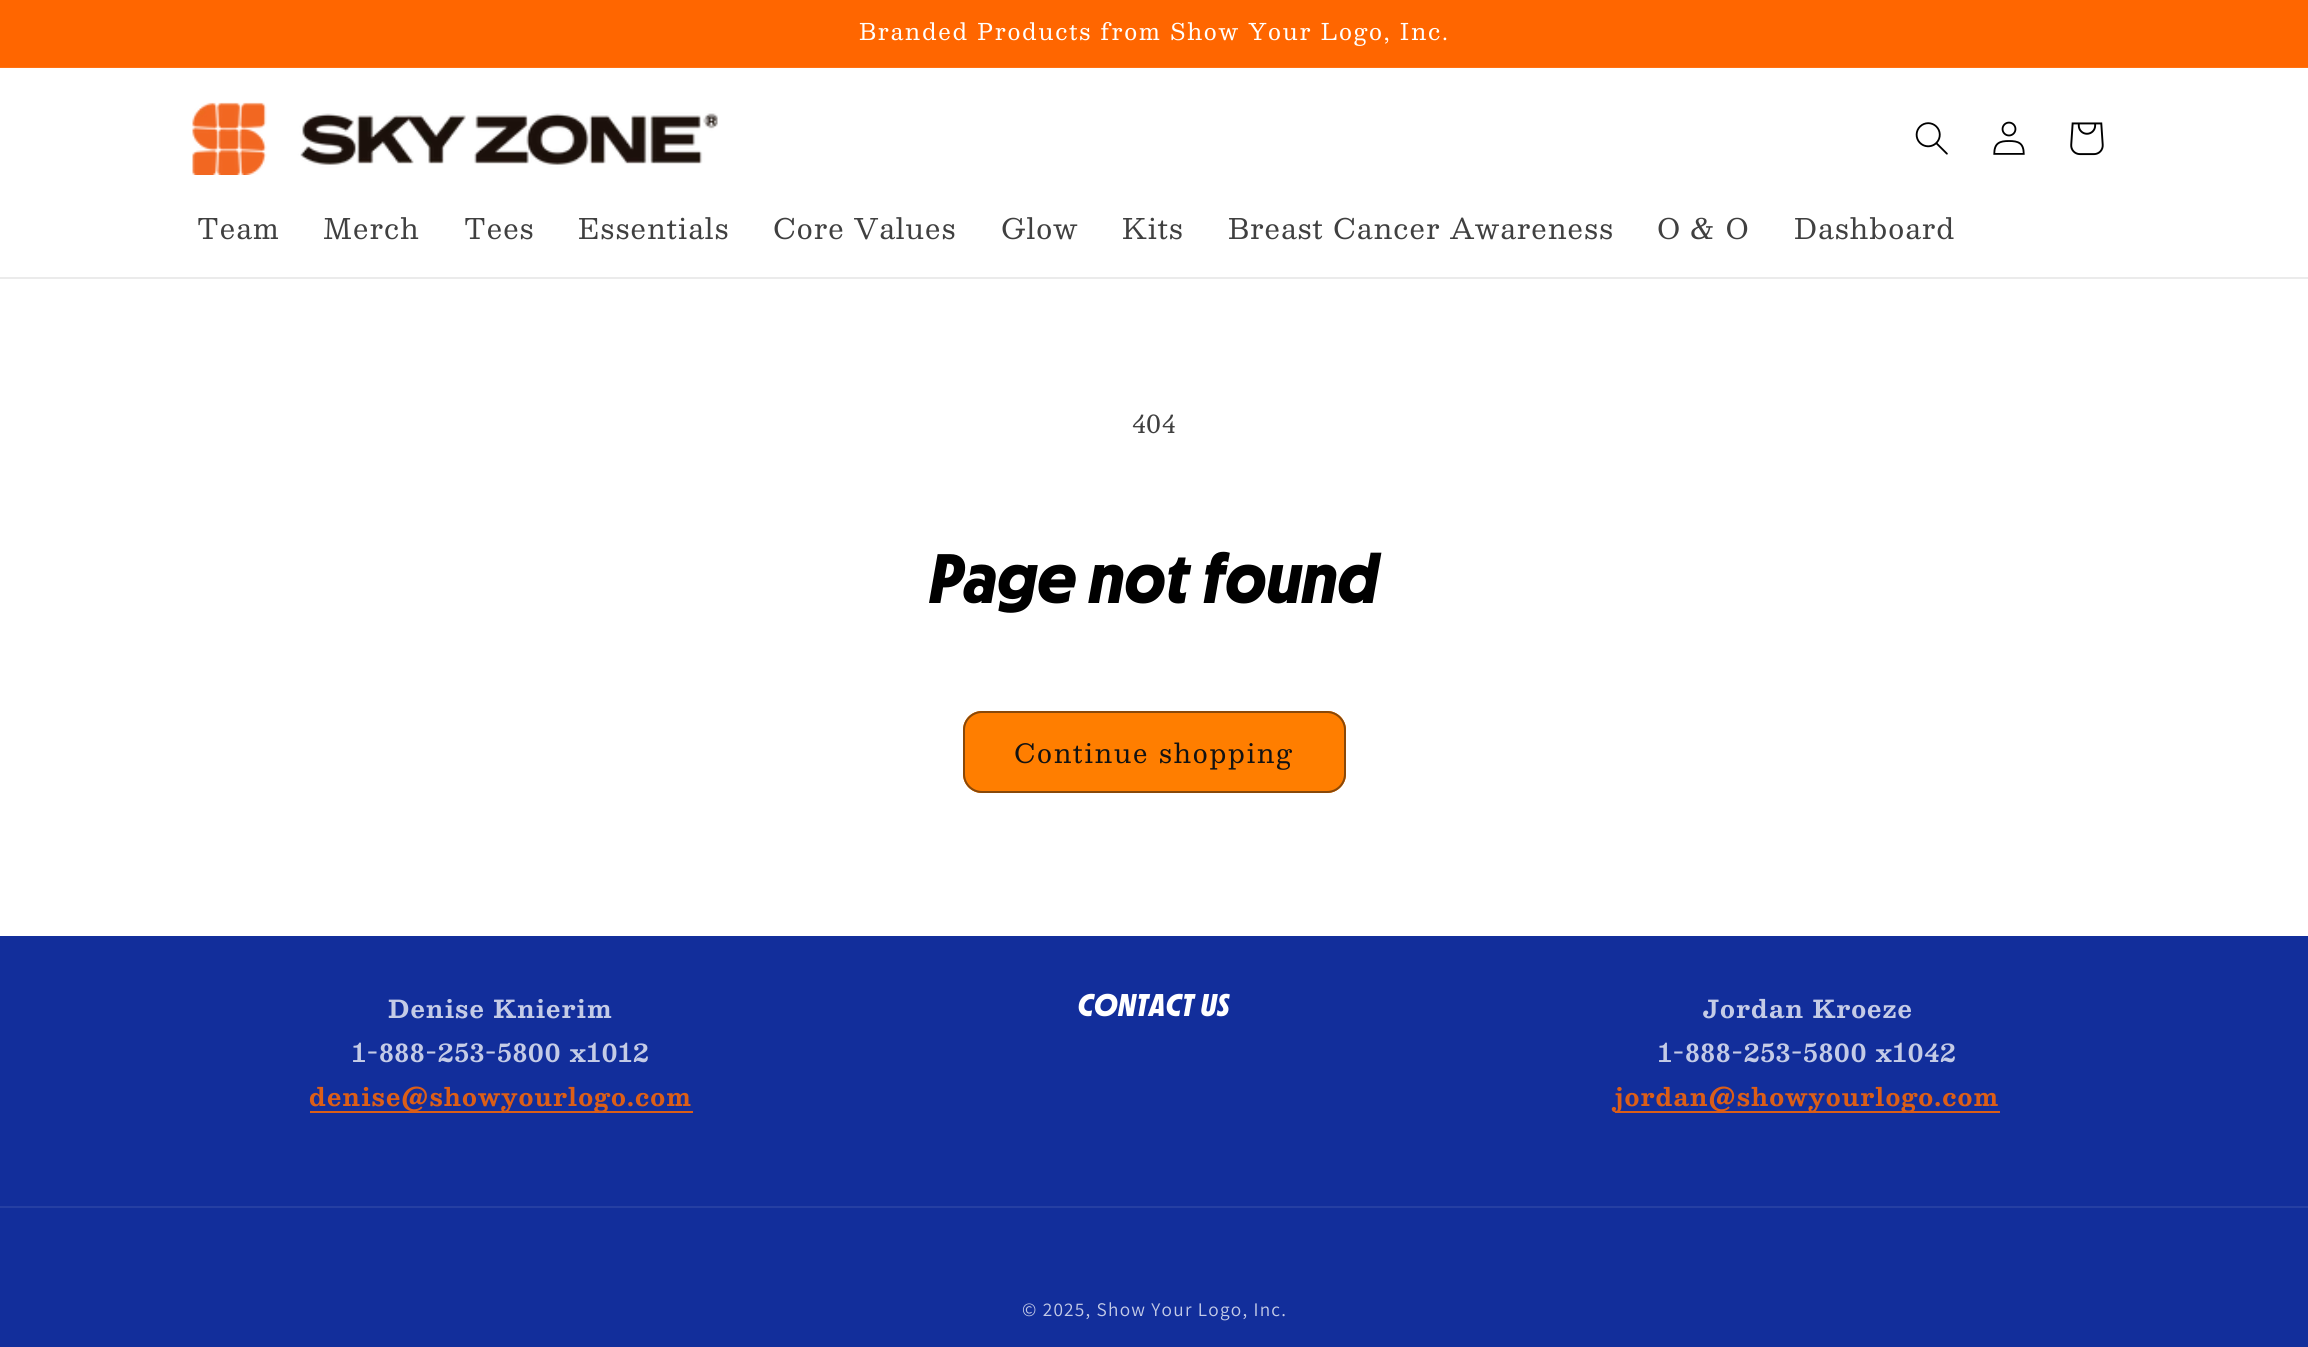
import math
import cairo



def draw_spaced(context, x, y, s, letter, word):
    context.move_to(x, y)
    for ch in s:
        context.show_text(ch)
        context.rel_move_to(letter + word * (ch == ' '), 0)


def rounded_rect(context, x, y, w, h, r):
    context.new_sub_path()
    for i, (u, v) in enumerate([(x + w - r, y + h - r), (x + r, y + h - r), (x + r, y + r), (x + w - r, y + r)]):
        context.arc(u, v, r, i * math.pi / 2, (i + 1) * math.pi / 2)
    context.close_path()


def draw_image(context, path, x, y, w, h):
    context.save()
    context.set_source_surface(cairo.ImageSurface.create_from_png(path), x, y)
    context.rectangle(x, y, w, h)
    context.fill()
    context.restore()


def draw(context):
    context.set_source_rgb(1, 1, 1)
    context.paint()
    context.set_source_rgb(1, 102 / 255, 0)
    context.rectangle(0, 0, 2308, 67)
    context.fill()
    context.set_source_rgb(1, 114 / 255, 20 / 255)
    context.rectangle(0, 67, 2308, 1)
    context.fill()
    context.set_source_rgb(235 / 255, 235 / 255, 235 / 255)
    context.rectangle(0, 277, 2308, 2)
    context.fill()
    draw_image(context, "images/1.png", 192, 102, 526, 73)
    draw_image(context, "images/2.png", 1915, 122, 33, 33)
    draw_image(context, "images/3.png", 1993, 121, 32, 34)
    draw_image(context, "images/4.png", 2070, 122, 34, 34)
    context.set_source_rgb(1, 126 / 255, 0)
    rounded_rect(context, 963, 711, 383, 82, 19)
    context.fill()
    rounded_rect(context, 964, 712, 381, 80, 18)
    context.stroke()
    rounded_rect(context, 964, 712, 381, 80, 18)
    context.set_source_rgba(18 / 255, 18 / 255, 18 / 255, 0.5)
    context.stroke()
    context.set_source_rgb(18 / 255, 46 / 255, 155 / 255)
    context.rectangle(0, 936, 2308, 411)
    context.fill()
    context.set_source_rgb(219 / 255, 94 / 255, 23 / 255)
    context.rectangle(310, 1111, 383, 2)
    context.fill()
    context.rectangle(1615, 1111, 385, 2)
    context.fill()
    context.set_source_rgb(37 / 255, 63 / 255, 163 / 255)
    context.rectangle(0, 1206, 2308, 2)
    context.fill()
    context.select_font_face("Besley")
    context.set_font_size(22.75)
    context.set_source_rgb(1, 1, 1)
    draw_spaced(context, 859, 40, "Branded Products from Show Your Logo, Inc.", 1.75, 0)
    context.set_font_size(28)
    context.set_source_rgb(64 / 255, 64 / 255, 64 / 255)
    draw_spaced(context, 197, 239, "Team", 1.05, 0)
    draw_spaced(context, 323, 239, "Merch", 1.05, 0)
    draw_spaced(context, 464, 239, "Tees", 1.05, 0)
    draw_spaced(context, 578, 239, "Essentials", 1.05, 0)
    draw_spaced(context, 773, 239, "Core Values", 1.05, 0)
    draw_spaced(context, 1001, 239, "Glow", 1.05, 0)
    draw_spaced(context, 1122, 239, "Kits", 1.05, 0)
    draw_spaced(context, 1228, 239, "Breast Cancer Awareness", 1.05, 0)
    draw_spaced(context, 1657, 239, "O & O", 1.05, 0)
    draw_spaced(context, 1794, 239, "Dashboard", 1.05, 0)
    context.set_font_size(24.5)
    draw_spaced(context, 1132, 433, "404", 1.05, 0)
    context.select_font_face("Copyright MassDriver", cairo.FontSlant.ITALIC, cairo.FontWeight.BOLD)
    context.set_font_size(70)
    context.set_source_rgb(0, 0, 0)
    draw_spaced(context, 930, 603, "Page not found", 1.05, 0)
    context.select_font_face("Besley")
    context.set_font_size(26.25)
    context.set_source_rgb(18 / 255, 18 / 255, 18 / 255)
    draw_spaced(context, 1014, 763, "Continue shopping", 1.75, 0)
    context.select_font_face("Besley", cairo.FontSlant.NORMAL, cairo.FontWeight.BOLD)
    context.set_font_size(24.5)
    context.set_source_rgb(196 / 255, 203 / 255, 230 / 255)
    draw_spaced(context, 388, 1018, "Denise Knierim", 1.05, 0)
    draw_spaced(context, 352, 1062, "1-888-253-5800 x1012", 1.05, 0)
    context.set_source_rgb(220 / 255, 94 / 255, 23 / 255)
    draw_spaced(context, 309, 1106, "denise@showyourlogo.com", 1.05, 0)
    context.select_font_face("Copyright MassDriver", cairo.FontSlant.ITALIC, cairo.FontWeight.BOLD)
    context.set_font_size(31.5)
    context.set_source_rgb(1, 1, 1)
    draw_spaced(context, 1078, 1016, "CONTACT US", 1.05, 0)
    context.select_font_face("Besley", cairo.FontSlant.NORMAL, cairo.FontWeight.BOLD)
    context.set_font_size(24.5)
    context.set_source_rgb(196 / 255, 203 / 255, 230 / 255)
    draw_spaced(context, 1703, 1018, "Jordan Kroeze", 1.05, 0)
    draw_spaced(context, 1658, 1062, "1-888-253-5800 x1042", 1.05, 0)
    context.set_source_rgb(220 / 255, 94 / 255, 23 / 255)
    draw_spaced(context, 1615, 1106, "jordan@showyourlogo.com", 1.05, 0)
    context.select_font_face("Assistant")
    context.set_font_size(19.25)
    context.set_source_rgb(196 / 255, 203 / 255, 230 / 255)
    draw_spaced(context, 1022, 1316, "© 2025, Show Your Logo, Inc.", 1.25, 0)


surface = cairo.ImageSurface(cairo.Format.RGB24, 2308, 1347)
context = cairo.Context(surface)
options = cairo.FontOptions()
options.set_hint_metrics(cairo.HintMetrics.OFF)
options.set_hint_style(cairo.HintStyle.NONE)
context.set_font_options(options)
context.set_miter_limit(4)
draw(context)
surface.write_to_png("out.png")
